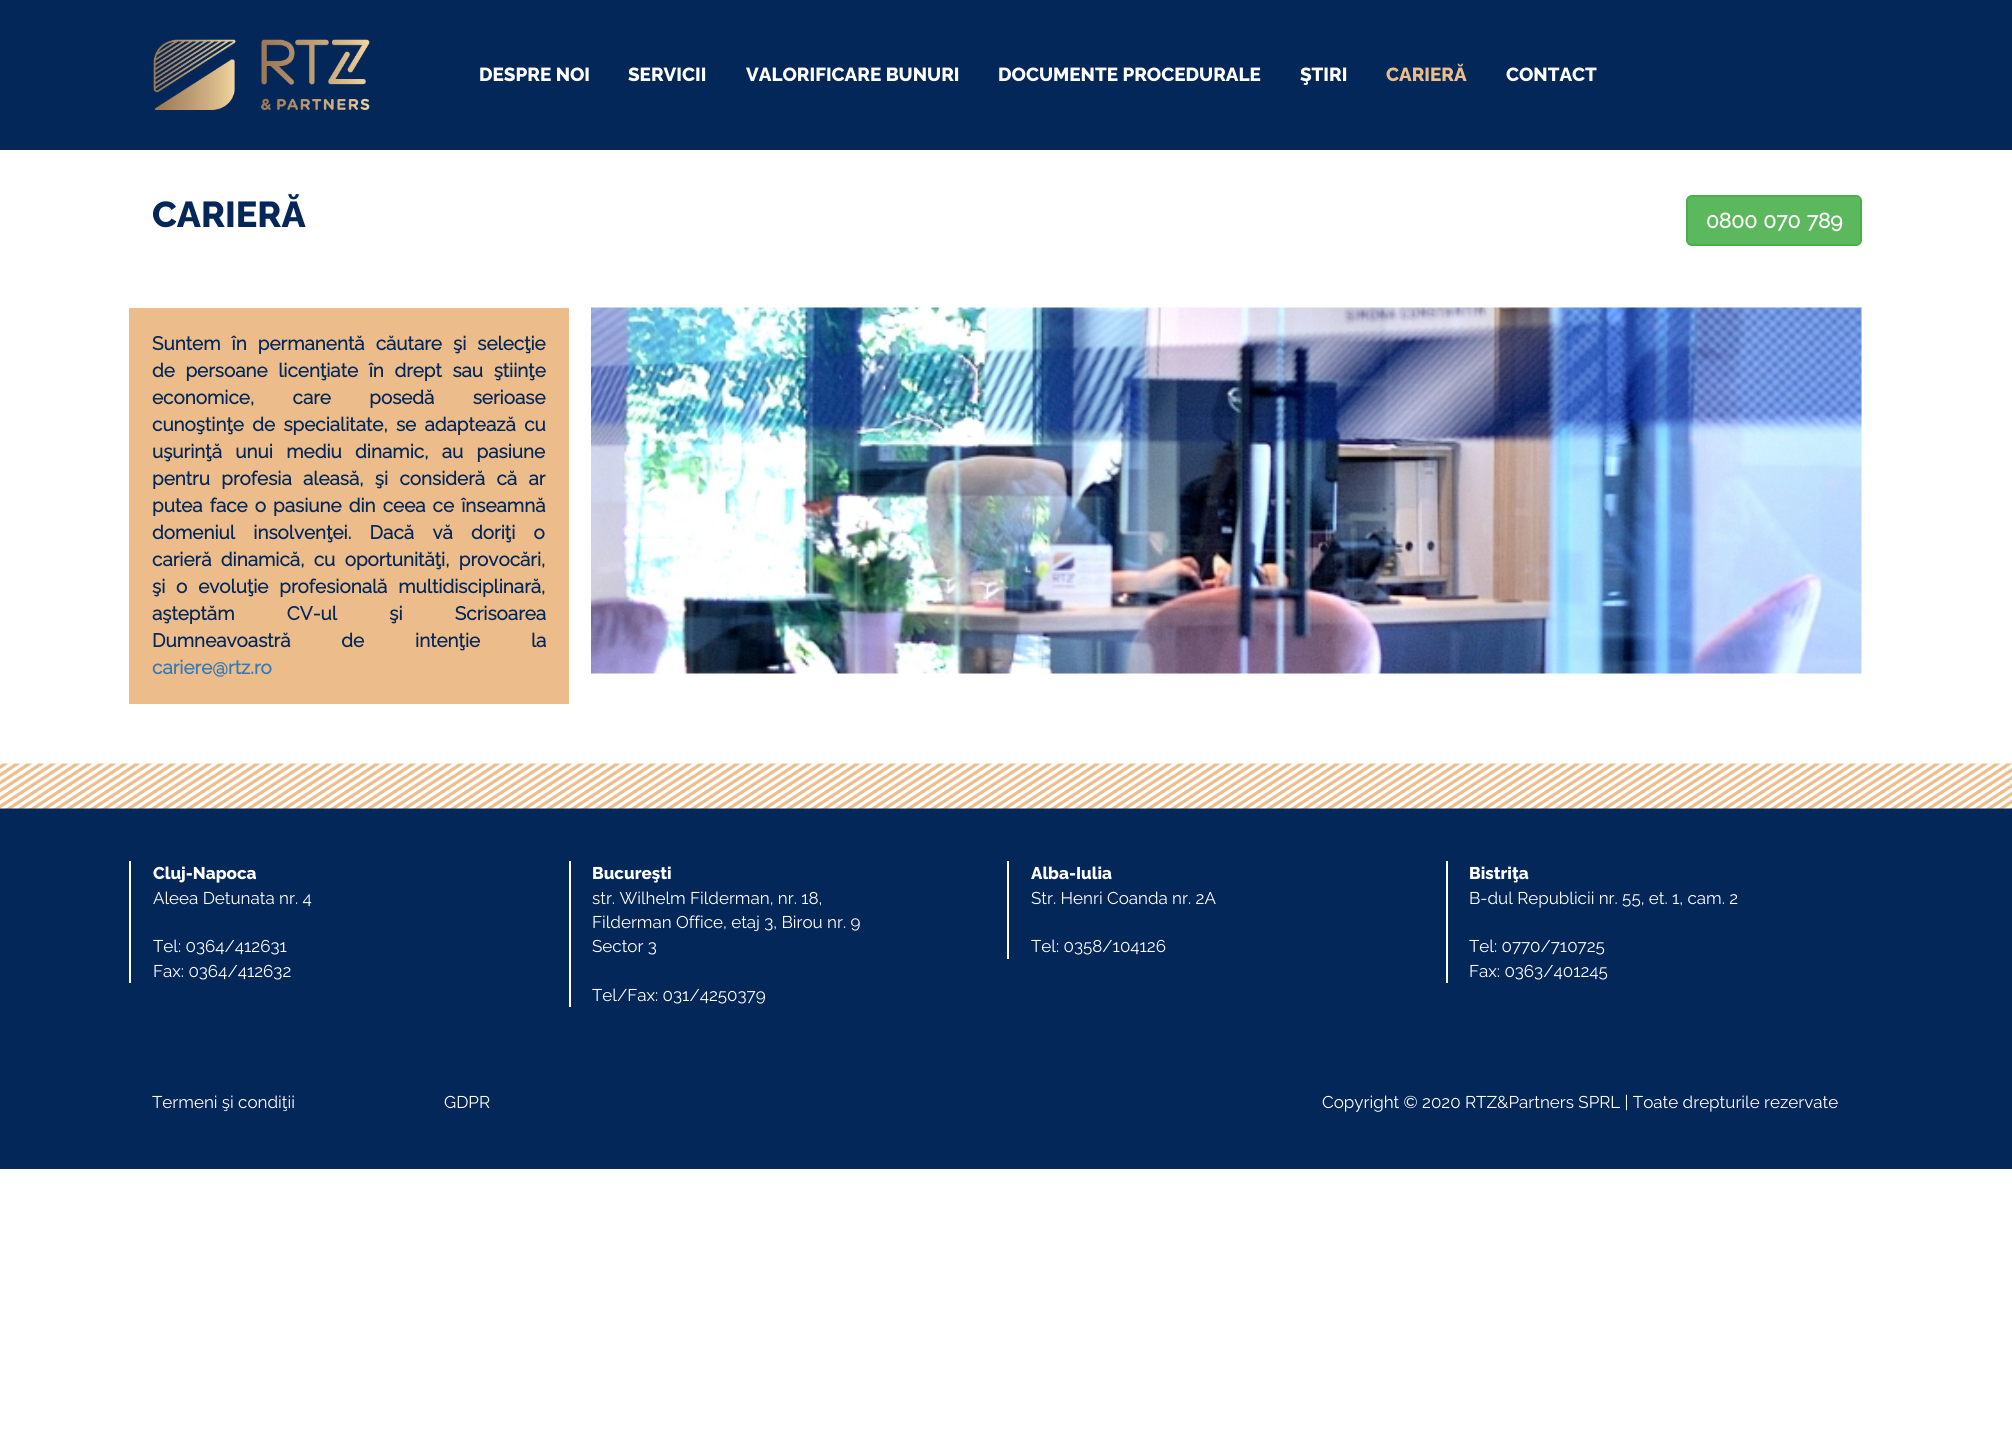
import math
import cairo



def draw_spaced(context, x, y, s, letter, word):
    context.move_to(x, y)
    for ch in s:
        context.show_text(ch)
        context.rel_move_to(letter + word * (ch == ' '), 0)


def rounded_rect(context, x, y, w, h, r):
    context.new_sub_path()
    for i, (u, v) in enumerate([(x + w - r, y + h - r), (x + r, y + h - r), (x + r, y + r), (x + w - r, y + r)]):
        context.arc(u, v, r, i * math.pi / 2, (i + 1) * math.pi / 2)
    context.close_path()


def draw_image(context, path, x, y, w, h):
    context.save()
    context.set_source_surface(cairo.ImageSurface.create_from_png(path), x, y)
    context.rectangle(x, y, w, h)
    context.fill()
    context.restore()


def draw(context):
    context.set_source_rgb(1, 1, 1)
    context.paint()
    context.set_source_rgb(4 / 255, 39 / 255, 89 / 255)
    context.rectangle(0, 0, 2012, 150)
    context.fill()
    draw_image(context, "images/1.png", 153, 39, 217, 71)
    context.set_source_rgb(92 / 255, 184 / 255, 92 / 255)
    rounded_rect(context, 1687, 196, 174, 49, 5)
    context.fill_preserve()
    context.set_source_rgb(76 / 255, 174 / 255, 76 / 255)
    context.stroke()
    context.set_source_rgb(236 / 255, 189 / 255, 138 / 255)
    context.rectangle(129, 308, 440, 396)
    context.fill()
    draw_image(context, "images/2.png", 591, 307, 1271, 367)
    context.set_source_rgb(4 / 255, 39 / 255, 89 / 255)
    context.rectangle(0, 808, 2012, 361)
    context.fill()
    draw_image(context, "images/3.png", 0, 763, 2012, 46)
    context.set_source_rgb(1, 1, 1)
    context.rectangle(129, 861, 2, 122)
    context.fill()
    context.rectangle(569, 861, 2, 146)
    context.fill()
    context.rectangle(1007, 861, 2, 98)
    context.fill()
    context.rectangle(1446, 861, 2, 122)
    context.fill()
    context.select_font_face("Raleway ExtraBold")
    context.set_font_size(18.9)
    context.move_to(479, 81)
    context.show_text("DESPRE NOI")
    context.move_to(628, 81)
    context.show_text("SERVICII")
    context.move_to(746, 81)
    context.show_text("VALORIFICARE BUNURI")
    context.move_to(998, 81)
    context.show_text("DOCUMENTE PROCEDURALE")
    context.move_to(1300, 81)
    context.show_text("ŞTIRI")
    context.set_source_rgb(236 / 255, 189 / 255, 138 / 255)
    context.move_to(1386, 81)
    context.show_text("CARIERĂ")
    context.set_source_rgb(1, 1, 1)
    context.move_to(1506, 81)
    context.show_text("CONTACT")
    context.set_font_size(36)
    context.set_source_rgb(4 / 255, 39 / 255, 89 / 255)
    context.move_to(152, 227)
    context.show_text("CARIERĂ")
    context.select_font_face("Raleway", cairo.FontSlant.NORMAL, cairo.FontWeight.BOLD)
    context.set_font_size(21)
    context.set_source_rgb(1, 1, 1)
    draw_spaced(context, 1706, 228, "0800 070 789", 0, 1)
    context.set_font_size(18.9)
    context.set_source_rgb(4 / 255, 39 / 255, 89 / 255)
    draw_spaced(context, 152, 350, "Suntem în permanentă căutare şi selecţie", 0, 6.25)
    draw_spaced(context, 152, 377, "de persoane licenţiate în drept sau ştiinţe", 0, 5.75)
    draw_spaced(context, 152, 404, "economice, care posedă serioase", 0, 33.5)
    draw_spaced(context, 152, 431, "cunoştinţe de specialitate, se adaptează cu", 0, 3.5)
    draw_spaced(context, 152, 458, "uşurinţă unui mediu dinamic, au pasiune", 0, 8.5)
    draw_spaced(context, 152, 485, "pentru profesia aleasă, şi consideră că ar", 0, 6.5)
    draw_spaced(context, 152, 512, "putea face o pasiune din ceea ce înseamnă", 0, 2.25)
    draw_spaced(context, 152, 539, "domeniul insolvenţei. Dacă vă doriţi o", 0, 13.5)
    draw_spaced(context, 152, 566, "carieră dinamică, cu oportunităţi, provocări,", 0, 4.5)
    draw_spaced(context, 152, 593, "şi o evoluţie profesională multidisciplinară,", 0, 6)
    draw_spaced(context, 152, 620, "aşteptăm CV-ul şi Scrisoarea", 0, 47.5)
    draw_spaced(context, 152, 647, "Dumneavoastră de intenţie la", 0, 46)
    context.set_source_rgb(51 / 255, 122 / 255, 183 / 255)
    context.move_to(152, 674)
    context.show_text("cariere@rtz.ro")
    context.select_font_face("Raleway ExtraBold")
    context.set_font_size(17)
    context.set_source_rgb(1, 1, 1)
    context.move_to(153, 879)
    context.show_text("Cluj-Napoca")
    context.select_font_face("Raleway")
    context.move_to(153, 904)
    context.show_text("Aleea Detunata nr. 4")
    context.move_to(153, 952)
    context.show_text("Tel: 0364/412631")
    context.move_to(153, 977)
    context.show_text("Fax: 0364/412632")
    context.select_font_face("Raleway ExtraBold")
    context.move_to(592, 879)
    context.show_text("Bucureşti")
    context.select_font_face("Raleway")
    context.move_to(592, 904)
    context.show_text("str. Wilhelm Filderman, nr. 18,")
    context.move_to(592, 928)
    context.show_text("Filderman Office, etaj 3, Birou nr. 9")
    context.move_to(592, 952)
    context.show_text("Sector 3")
    context.move_to(592, 1001)
    context.show_text("Tel/Fax: 031/4250379")
    context.select_font_face("Raleway ExtraBold")
    context.move_to(1031, 879)
    context.show_text("Alba-Iulia")
    context.select_font_face("Raleway")
    context.move_to(1031, 904)
    context.show_text("Str. Henri Coanda nr. 2A")
    context.move_to(1031, 952)
    context.show_text("Tel: 0358/104126")
    context.select_font_face("Raleway ExtraBold")
    context.move_to(1469, 879)
    context.show_text("Bistriţa")
    context.select_font_face("Raleway")
    context.move_to(1469, 904)
    context.show_text("B-dul Republicii nr. 55, et. 1, cam. 2")
    context.move_to(1469, 952)
    context.show_text("Tel: 0770/710725")
    context.move_to(1469, 977)
    context.show_text("Fax: 0363/401245")
    context.move_to(152, 1108)
    context.show_text("Termeni şi condiţii")
    context.move_to(444, 1108)
    context.show_text("GDPR")
    context.move_to(1322, 1108)
    context.show_text("Copyright © 2020 RTZ&Partners SPRL | Toate drepturile rezervate")


surface = cairo.ImageSurface(cairo.Format.RGB24, 2012, 1438)
context = cairo.Context(surface)
options = cairo.FontOptions()
options.set_hint_metrics(cairo.HintMetrics.OFF)
options.set_hint_style(cairo.HintStyle.NONE)
context.set_font_options(options)
context.set_miter_limit(4)
draw(context)
surface.write_to_png("out.png")
